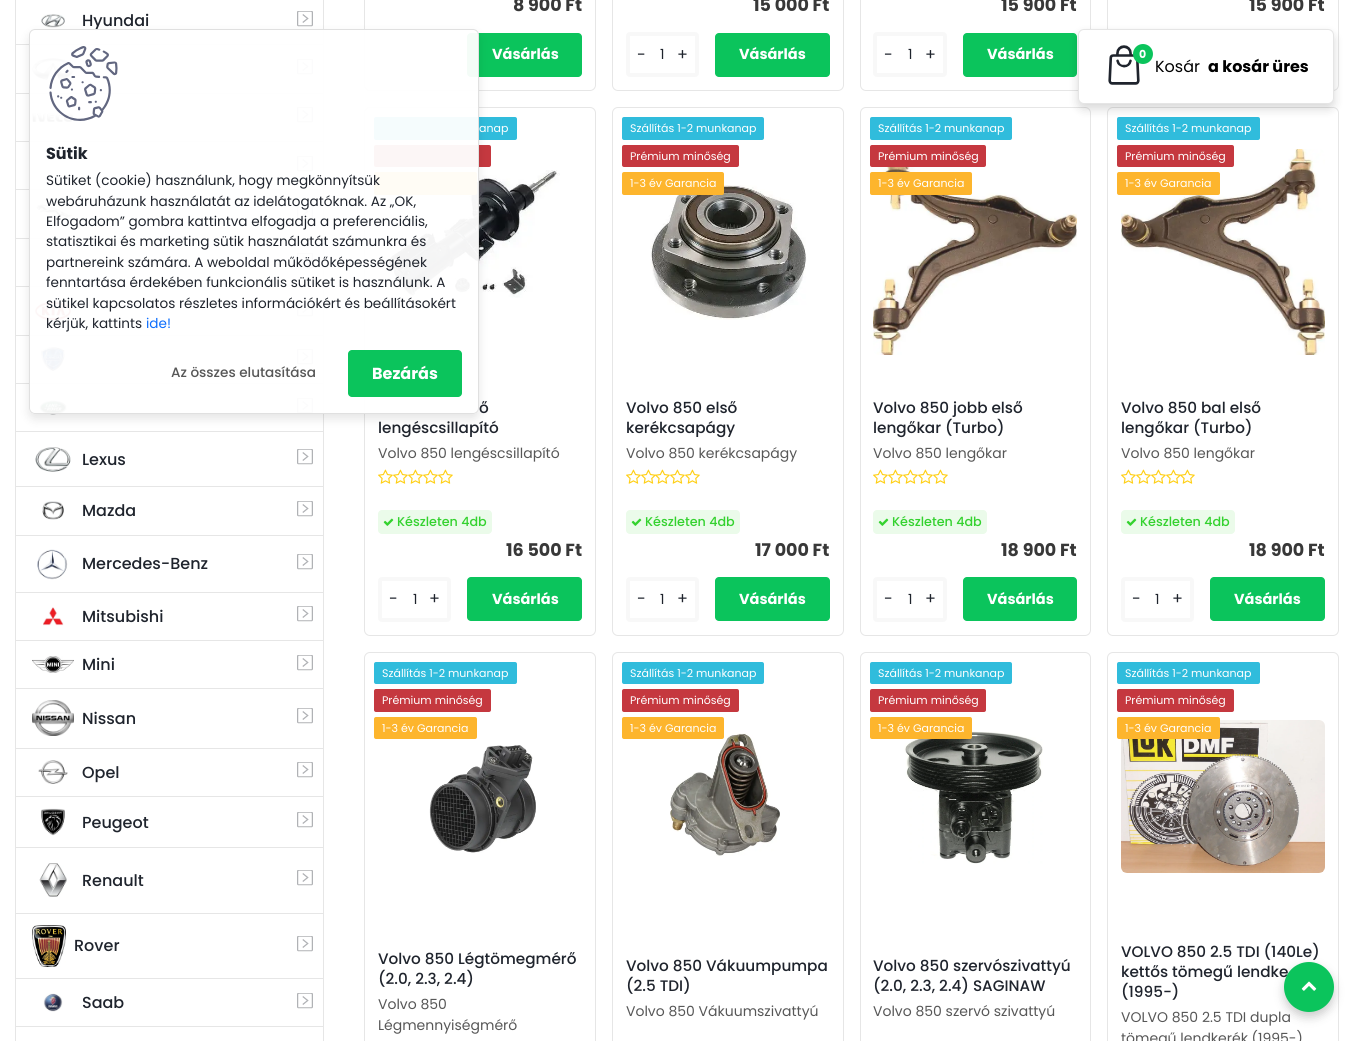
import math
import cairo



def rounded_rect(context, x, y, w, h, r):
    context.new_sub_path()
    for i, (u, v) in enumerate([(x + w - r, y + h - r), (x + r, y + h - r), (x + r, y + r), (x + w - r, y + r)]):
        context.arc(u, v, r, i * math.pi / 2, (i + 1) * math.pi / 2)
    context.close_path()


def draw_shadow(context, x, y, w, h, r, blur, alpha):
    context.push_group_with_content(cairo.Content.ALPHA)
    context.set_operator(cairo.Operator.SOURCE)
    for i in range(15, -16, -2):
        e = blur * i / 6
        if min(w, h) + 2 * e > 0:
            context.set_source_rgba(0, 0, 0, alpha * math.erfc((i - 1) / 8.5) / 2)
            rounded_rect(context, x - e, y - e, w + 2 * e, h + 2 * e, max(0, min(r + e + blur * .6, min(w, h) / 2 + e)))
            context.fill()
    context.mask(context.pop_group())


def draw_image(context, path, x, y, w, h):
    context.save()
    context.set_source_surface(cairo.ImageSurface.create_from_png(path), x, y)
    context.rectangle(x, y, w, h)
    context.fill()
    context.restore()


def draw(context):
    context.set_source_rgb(1, 1, 1)
    context.paint()
    context.set_source_rgb(230 / 255, 230 / 255, 230 / 255)
    context.new_path()
    context.move_to(324, -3)
    context.line_to(324, 45)
    context.line_to(323, 44)
    context.line_to(323, -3)
    context.close_path()
    context.fill()
    context.set_source_rgba(0, 0, 0, 0.1)
    context.new_path()
    context.move_to(324, 45)
    context.line_to(15, 45)
    context.line_to(16, 44)
    context.line_to(323, 44)
    context.close_path()
    context.fill()
    context.new_path()
    context.move_to(15, 45)
    context.line_to(15, -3)
    context.line_to(16, -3)
    context.line_to(16, 44)
    context.close_path()
    context.fill()
    draw_image(context, "images/1.png", 41, 14, 24, 14)
    draw_image(context, "images/2.png", 297, 11, 16, 16)
    context.set_source_rgb(230 / 255, 230 / 255, 230 / 255)
    context.new_path()
    context.move_to(324, 45)
    context.line_to(324, 94)
    context.line_to(323, 93)
    context.line_to(323, 45)
    context.close_path()
    context.fill()
    context.set_source_rgba(0, 0, 0, 0.1)
    context.new_path()
    context.move_to(324, 94)
    context.line_to(15, 94)
    context.line_to(16, 93)
    context.line_to(323, 93)
    context.close_path()
    context.fill()
    context.new_path()
    context.move_to(15, 94)
    context.line_to(15, 45)
    context.line_to(16, 45)
    context.line_to(16, 93)
    context.close_path()
    context.fill()
    draw_image(context, "images/3.png", 32, 58, 42, 22)
    draw_image(context, "images/2.png", 297, 59, 16, 16)
    context.set_source_rgb(230 / 255, 230 / 255, 230 / 255)
    context.new_path()
    context.move_to(324, 94)
    context.line_to(324, 142)
    context.line_to(323, 141)
    context.line_to(323, 94)
    context.close_path()
    context.fill()
    context.set_source_rgba(0, 0, 0, 0.1)
    context.new_path()
    context.move_to(324, 142)
    context.line_to(15, 142)
    context.line_to(16, 141)
    context.line_to(323, 141)
    context.close_path()
    context.fill()
    context.new_path()
    context.move_to(15, 142)
    context.line_to(15, 94)
    context.line_to(16, 94)
    context.line_to(16, 141)
    context.close_path()
    context.fill()
    draw_image(context, "images/4.png", 32, 113, 42, 9)
    draw_image(context, "images/2.png", 297, 107, 16, 16)
    context.set_source_rgb(230 / 255, 230 / 255, 230 / 255)
    context.new_path()
    context.move_to(324, 142)
    context.line_to(324, 190)
    context.line_to(323, 189)
    context.line_to(323, 142)
    context.close_path()
    context.fill()
    context.set_source_rgba(0, 0, 0, 0.1)
    context.new_path()
    context.move_to(324, 190)
    context.line_to(15, 190)
    context.line_to(16, 189)
    context.line_to(323, 189)
    context.close_path()
    context.fill()
    context.new_path()
    context.move_to(15, 190)
    context.line_to(15, 142)
    context.line_to(16, 142)
    context.line_to(16, 189)
    context.close_path()
    context.fill()
    draw_image(context, "images/2.png", 297, 156, 16, 16)
    context.set_source_rgb(230 / 255, 230 / 255, 230 / 255)
    context.new_path()
    context.move_to(324, 190)
    context.line_to(324, 239)
    context.line_to(323, 238)
    context.line_to(323, 190)
    context.close_path()
    context.fill()
    context.set_source_rgba(0, 0, 0, 0.1)
    context.new_path()
    context.move_to(324, 239)
    context.line_to(15, 239)
    context.line_to(16, 238)
    context.line_to(323, 238)
    context.close_path()
    context.fill()
    context.new_path()
    context.move_to(15, 239)
    context.line_to(15, 190)
    context.line_to(16, 190)
    context.line_to(16, 238)
    context.close_path()
    context.fill()
    draw_image(context, "images/5.png", 36, 204, 36, 14)
    draw_image(context, "images/2.png", 297, 204, 16, 16)
    context.set_source_rgb(230 / 255, 230 / 255, 230 / 255)
    context.new_path()
    context.move_to(324, 239)
    context.line_to(324, 287)
    context.line_to(323, 286)
    context.line_to(323, 239)
    context.close_path()
    context.fill()
    context.set_source_rgba(0, 0, 0, 0.1)
    context.new_path()
    context.move_to(324, 287)
    context.line_to(15, 287)
    context.line_to(16, 286)
    context.line_to(323, 286)
    context.close_path()
    context.fill()
    context.new_path()
    context.move_to(15, 287)
    context.line_to(15, 239)
    context.line_to(16, 239)
    context.line_to(16, 286)
    context.close_path()
    context.fill()
    draw_image(context, "images/6.png", 297, 253, 16, 16)
    context.set_source_rgb(230 / 255, 230 / 255, 230 / 255)
    context.new_path()
    context.move_to(324, 287)
    context.line_to(324, 336)
    context.line_to(323, 335)
    context.line_to(323, 287)
    context.close_path()
    context.fill()
    context.set_source_rgba(0, 0, 0, 0.1)
    context.new_path()
    context.move_to(324, 336)
    context.line_to(15, 336)
    context.line_to(16, 335)
    context.line_to(323, 335)
    context.close_path()
    context.fill()
    context.new_path()
    context.move_to(15, 336)
    context.line_to(15, 287)
    context.line_to(16, 287)
    context.line_to(16, 335)
    context.close_path()
    context.fill()
    draw_image(context, "images/7.png", 35, 301, 36, 20)
    draw_image(context, "images/2.png", 297, 301, 16, 16)
    context.set_source_rgb(230 / 255, 230 / 255, 230 / 255)
    context.new_path()
    context.move_to(324, 336)
    context.line_to(324, 384)
    context.line_to(323, 383)
    context.line_to(323, 336)
    context.close_path()
    context.fill()
    context.set_source_rgba(0, 0, 0, 0.1)
    context.new_path()
    context.move_to(324, 384)
    context.line_to(15, 384)
    context.line_to(16, 383)
    context.line_to(323, 383)
    context.close_path()
    context.fill()
    context.new_path()
    context.move_to(15, 384)
    context.line_to(15, 336)
    context.line_to(16, 336)
    context.line_to(16, 383)
    context.close_path()
    context.fill()
    draw_image(context, "images/8.png", 41, 347, 24, 24)
    draw_image(context, "images/2.png", 297, 349, 16, 16)
    context.set_source_rgb(230 / 255, 230 / 255, 230 / 255)
    context.new_path()
    context.move_to(324, 384)
    context.line_to(324, 432)
    context.line_to(323, 431)
    context.line_to(323, 384)
    context.close_path()
    context.fill()
    context.set_source_rgba(0, 0, 0, 0.1)
    context.new_path()
    context.move_to(324, 432)
    context.line_to(15, 432)
    context.line_to(16, 431)
    context.line_to(323, 431)
    context.close_path()
    context.fill()
    context.new_path()
    context.move_to(15, 432)
    context.line_to(15, 384)
    context.line_to(16, 384)
    context.line_to(16, 431)
    context.close_path()
    context.fill()
    draw_image(context, "images/9.png", 39, 400, 28, 15)
    draw_image(context, "images/10.png", 297, 398, 16, 15)
    context.set_source_rgb(230 / 255, 230 / 255, 230 / 255)
    context.new_path()
    context.move_to(324, 432)
    context.line_to(324, 487)
    context.line_to(323, 486)
    context.line_to(323, 432)
    context.close_path()
    context.fill()
    context.set_source_rgba(0, 0, 0, 0.1)
    context.new_path()
    context.move_to(324, 487)
    context.line_to(15, 487)
    context.line_to(16, 486)
    context.line_to(323, 486)
    context.close_path()
    context.fill()
    context.new_path()
    context.move_to(15, 487)
    context.line_to(15, 432)
    context.line_to(16, 432)
    context.line_to(16, 486)
    context.close_path()
    context.fill()
    draw_image(context, "images/11.png", 35, 447, 36, 25)
    draw_image(context, "images/2.png", 297, 449, 16, 16)
    context.set_source_rgb(230 / 255, 230 / 255, 230 / 255)
    context.new_path()
    context.move_to(324, 487)
    context.line_to(324, 536)
    context.line_to(323, 535)
    context.line_to(323, 487)
    context.close_path()
    context.fill()
    context.set_source_rgba(0, 0, 0, 0.1)
    context.new_path()
    context.move_to(324, 536)
    context.line_to(15, 536)
    context.line_to(16, 535)
    context.line_to(323, 535)
    context.close_path()
    context.fill()
    context.new_path()
    context.move_to(15, 536)
    context.line_to(15, 487)
    context.line_to(16, 487)
    context.line_to(16, 535)
    context.close_path()
    context.fill()
    draw_image(context, "images/12.png", 42, 501, 22, 19)
    draw_image(context, "images/13.png", 297, 501, 16, 16)
    context.set_source_rgb(230 / 255, 230 / 255, 230 / 255)
    context.new_path()
    context.move_to(324, 536)
    context.line_to(324, 593)
    context.line_to(323, 592)
    context.line_to(323, 536)
    context.close_path()
    context.fill()
    context.set_source_rgba(0, 0, 0, 0.1)
    context.new_path()
    context.move_to(324, 593)
    context.line_to(15, 593)
    context.line_to(16, 592)
    context.line_to(323, 592)
    context.close_path()
    context.fill()
    context.new_path()
    context.move_to(15, 593)
    context.line_to(15, 536)
    context.line_to(16, 536)
    context.line_to(16, 592)
    context.close_path()
    context.fill()
    draw_image(context, "images/14.png", 37, 549, 31, 31)
    draw_image(context, "images/2.png", 297, 554, 16, 16)
    context.set_source_rgb(230 / 255, 230 / 255, 230 / 255)
    context.new_path()
    context.move_to(324, 593)
    context.line_to(324, 641)
    context.line_to(323, 640)
    context.line_to(323, 593)
    context.close_path()
    context.fill()
    context.set_source_rgba(0, 0, 0, 0.1)
    context.new_path()
    context.move_to(324, 641)
    context.line_to(15, 641)
    context.line_to(16, 640)
    context.line_to(323, 640)
    context.close_path()
    context.fill()
    context.new_path()
    context.move_to(15, 641)
    context.line_to(15, 593)
    context.line_to(16, 593)
    context.line_to(16, 640)
    context.close_path()
    context.fill()
    draw_image(context, "images/15.png", 43, 607, 21, 19)
    draw_image(context, "images/2.png", 297, 606, 16, 16)
    context.set_source_rgb(230 / 255, 230 / 255, 230 / 255)
    context.new_path()
    context.move_to(324, 641)
    context.line_to(324, 689)
    context.line_to(323, 688)
    context.line_to(323, 641)
    context.close_path()
    context.fill()
    context.set_source_rgba(0, 0, 0, 0.1)
    context.new_path()
    context.move_to(324, 689)
    context.line_to(15, 689)
    context.line_to(16, 688)
    context.line_to(323, 688)
    context.close_path()
    context.fill()
    context.new_path()
    context.move_to(15, 689)
    context.line_to(15, 641)
    context.line_to(16, 641)
    context.line_to(16, 688)
    context.close_path()
    context.fill()
    draw_image(context, "images/16.png", 32, 656, 42, 17)
    draw_image(context, "images/2.png", 297, 655, 16, 16)
    context.set_source_rgb(230 / 255, 230 / 255, 230 / 255)
    context.new_path()
    context.move_to(324, 689)
    context.line_to(324, 749)
    context.line_to(323, 748)
    context.line_to(323, 689)
    context.close_path()
    context.fill()
    context.set_source_rgba(0, 0, 0, 0.1)
    context.new_path()
    context.move_to(324, 749)
    context.line_to(15, 749)
    context.line_to(16, 748)
    context.line_to(323, 748)
    context.close_path()
    context.fill()
    context.new_path()
    context.move_to(15, 749)
    context.line_to(15, 689)
    context.line_to(16, 689)
    context.line_to(16, 748)
    context.close_path()
    context.fill()
    draw_image(context, "images/17.png", 32, 700, 42, 36)
    draw_image(context, "images/2.png", 297, 708, 16, 16)
    context.set_source_rgb(230 / 255, 230 / 255, 230 / 255)
    context.new_path()
    context.move_to(324, 749)
    context.line_to(324, 797)
    context.line_to(323, 796)
    context.line_to(323, 749)
    context.close_path()
    context.fill()
    context.set_source_rgba(0, 0, 0, 0.1)
    context.new_path()
    context.move_to(324, 797)
    context.line_to(15, 797)
    context.line_to(16, 796)
    context.line_to(323, 796)
    context.close_path()
    context.fill()
    context.new_path()
    context.move_to(15, 797)
    context.line_to(15, 749)
    context.line_to(16, 749)
    context.line_to(16, 796)
    context.close_path()
    context.fill()
    draw_image(context, "images/18.png", 38, 760, 30, 24)
    draw_image(context, "images/19.png", 297, 762, 16, 16)
    context.set_source_rgb(230 / 255, 230 / 255, 230 / 255)
    context.new_path()
    context.move_to(324, 797)
    context.line_to(324, 848)
    context.line_to(323, 847)
    context.line_to(323, 797)
    context.close_path()
    context.fill()
    context.set_source_rgba(0, 0, 0, 0.1)
    context.new_path()
    context.move_to(324, 848)
    context.line_to(15, 848)
    context.line_to(16, 847)
    context.line_to(323, 847)
    context.close_path()
    context.fill()
    context.new_path()
    context.move_to(15, 848)
    context.line_to(15, 797)
    context.line_to(16, 797)
    context.line_to(16, 847)
    context.close_path()
    context.fill()
    draw_image(context, "images/20.png", 41, 808, 24, 28)
    draw_image(context, "images/2.png", 297, 812, 16, 16)
    context.set_source_rgb(230 / 255, 230 / 255, 230 / 255)
    context.new_path()
    context.move_to(324, 848)
    context.line_to(324, 914)
    context.line_to(323, 913)
    context.line_to(323, 848)
    context.close_path()
    context.fill()
    context.set_source_rgba(0, 0, 0, 0.1)
    context.new_path()
    context.move_to(324, 914)
    context.line_to(15, 914)
    context.line_to(16, 913)
    context.line_to(323, 913)
    context.close_path()
    context.fill()
    context.new_path()
    context.move_to(15, 914)
    context.line_to(15, 848)
    context.line_to(16, 848)
    context.line_to(16, 913)
    context.close_path()
    context.fill()
    draw_image(context, "images/21.png", 39, 863, 28, 34)
    draw_image(context, "images/2.png", 297, 870, 16, 16)
    context.set_source_rgb(230 / 255, 230 / 255, 230 / 255)
    context.new_path()
    context.move_to(324, 914)
    context.line_to(324, 979)
    context.line_to(323, 978)
    context.line_to(323, 914)
    context.close_path()
    context.fill()
    context.set_source_rgba(0, 0, 0, 0.1)
    context.new_path()
    context.move_to(324, 979)
    context.line_to(15, 979)
    context.line_to(16, 978)
    context.line_to(323, 978)
    context.close_path()
    context.fill()
    context.new_path()
    context.move_to(15, 979)
    context.line_to(15, 914)
    context.line_to(16, 914)
    context.line_to(16, 978)
    context.close_path()
    context.fill()
    draw_image(context, "images/22.png", 32, 925, 34, 42)
    draw_image(context, "images/2.png", 297, 936, 16, 16)
    context.set_source_rgb(230 / 255, 230 / 255, 230 / 255)
    context.new_path()
    context.move_to(324, 979)
    context.line_to(324, 1027)
    context.line_to(323, 1026)
    context.line_to(323, 979)
    context.close_path()
    context.fill()
    context.set_source_rgba(0, 0, 0, 0.1)
    context.new_path()
    context.move_to(324, 1027)
    context.line_to(15, 1027)
    context.line_to(16, 1026)
    context.line_to(323, 1026)
    context.close_path()
    context.fill()
    context.new_path()
    context.move_to(15, 1027)
    context.line_to(15, 979)
    context.line_to(16, 979)
    context.line_to(16, 1026)
    context.close_path()
    context.fill()
    draw_image(context, "images/23.png", 43, 993, 20, 19)
    draw_image(context, "images/2.png", 297, 993, 16, 16)
    context.set_source_rgb(230 / 255, 230 / 255, 230 / 255)
    context.new_path()
    context.move_to(324, 1027)
    context.line_to(324, 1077)
    context.line_to(323, 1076)
    context.line_to(323, 1027)
    context.close_path()
    context.fill()
    context.new_path()
    context.move_to(15, 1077)
    context.line_to(15, 1027)
    context.line_to(16, 1027)
    context.line_to(16, 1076)
    context.close_path()
    context.fill()
    rounded_rect(context, 364.5, -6.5, 231, 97, 5.5)
    context.set_line_width(1)
    context.stroke()
    rounded_rect(context, 380, 34, 69, 41, 2)
    context.set_source_rgb(248 / 255, 248 / 255, 248 / 255)
    context.set_line_width(4)
    context.stroke()
    context.set_source_rgb(11 / 255, 196 / 255, 92 / 255)
    rounded_rect(context, 467, 33, 115, 44, 4)
    context.fill()
    rounded_rect(context, 612.5, -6.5, 231, 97, 5.5)
    context.set_source_rgb(230 / 255, 230 / 255, 230 / 255)
    context.set_line_width(1)
    context.stroke()
    rounded_rect(context, 628, 34, 69, 41, 2)
    context.set_source_rgb(248 / 255, 248 / 255, 248 / 255)
    context.set_line_width(4)
    context.stroke()
    context.set_source_rgb(11 / 255, 196 / 255, 92 / 255)
    rounded_rect(context, 715, 33, 115, 44, 4)
    context.fill()
    rounded_rect(context, 860.5, -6.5, 230, 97, 5.5)
    context.set_source_rgb(230 / 255, 230 / 255, 230 / 255)
    context.set_line_width(1)
    context.stroke()
    rounded_rect(context, 875, 34, 70, 41, 2)
    context.set_source_rgb(248 / 255, 248 / 255, 248 / 255)
    context.set_line_width(4)
    context.stroke()
    context.set_source_rgb(11 / 255, 196 / 255, 92 / 255)
    rounded_rect(context, 963, 33, 114, 44, 4)
    context.fill()
    rounded_rect(context, 1107.5, -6.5, 231, 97, 5.5)
    context.set_source_rgb(230 / 255, 230 / 255, 230 / 255)
    context.set_line_width(1)
    context.stroke()
    rounded_rect(context, 364.5, 107.5, 231, 528, 5.5)
    context.stroke()
    context.set_source_rgb(48 / 255, 188 / 255, 220 / 255)
    rounded_rect(context, 374, 117, 143, 23, 2)
    context.fill()
    context.set_source_rgb(197 / 255, 56 / 255, 63 / 255)
    rounded_rect(context, 374, 145, 117, 22, 2)
    context.fill()
    draw_image(context, "images/24.png", 384, 170, 176, 128)
    context.set_source_rgb(253 / 255, 181 / 255, 45 / 255)
    rounded_rect(context, 374, 172, 103, 23, 2)
    context.fill()
    draw_image(context, "images/25.png", 378, 469, 15, 15)
    draw_image(context, "images/25.png", 393, 469, 15, 15)
    draw_image(context, "images/25.png", 408, 469, 15, 15)
    draw_image(context, "images/25.png", 423, 469, 15, 15)
    draw_image(context, "images/25.png", 438, 469, 15, 15)
    context.set_source_rgb(235 / 255, 251 / 255, 234 / 255)
    rounded_rect(context, 378, 510, 114, 24, 4)
    context.fill()
    draw_image(context, "images/26.png", 383, 518, 11, 8)
    rounded_rect(context, 380, 579, 69, 41, 2)
    context.set_source_rgb(248 / 255, 248 / 255, 248 / 255)
    context.set_line_width(4)
    context.stroke()
    context.set_source_rgb(11 / 255, 196 / 255, 92 / 255)
    rounded_rect(context, 467, 577, 115, 44, 4)
    context.fill()
    rounded_rect(context, 612.5, 107.5, 231, 528, 5.5)
    context.set_source_rgb(230 / 255, 230 / 255, 230 / 255)
    context.set_line_width(1)
    context.stroke()
    context.set_source_rgb(48 / 255, 188 / 255, 220 / 255)
    rounded_rect(context, 622, 117, 142, 23, 2)
    context.fill()
    context.set_source_rgb(197 / 255, 56 / 255, 63 / 255)
    rounded_rect(context, 622, 145, 117, 22, 2)
    context.fill()
    draw_image(context, "images/27.png", 650, 185, 157, 135)
    context.set_source_rgb(253 / 255, 181 / 255, 45 / 255)
    rounded_rect(context, 622, 172, 102, 23, 2)
    context.fill()
    draw_image(context, "images/25.png", 626, 469, 15, 15)
    draw_image(context, "images/25.png", 641, 469, 15, 15)
    draw_image(context, "images/28.png", 655, 469, 15, 15)
    draw_image(context, "images/25.png", 670, 469, 15, 15)
    draw_image(context, "images/25.png", 685, 469, 15, 15)
    context.set_source_rgb(235 / 255, 251 / 255, 234 / 255)
    rounded_rect(context, 626, 510, 114, 24, 4)
    context.fill()
    draw_image(context, "images/26.png", 631, 518, 11, 8)
    rounded_rect(context, 628, 579, 69, 41, 2)
    context.set_source_rgb(248 / 255, 248 / 255, 248 / 255)
    context.set_line_width(4)
    context.stroke()
    context.set_source_rgb(11 / 255, 196 / 255, 92 / 255)
    rounded_rect(context, 715, 577, 115, 44, 4)
    context.fill()
    rounded_rect(context, 860.5, 107.5, 230, 528, 5.5)
    context.set_source_rgb(230 / 255, 230 / 255, 230 / 255)
    context.set_line_width(1)
    context.stroke()
    context.set_source_rgb(48 / 255, 188 / 255, 220 / 255)
    rounded_rect(context, 870, 117, 142, 23, 2)
    context.fill()
    draw_image(context, "images/29.png", 873, 149, 204, 206)
    context.set_source_rgb(197 / 255, 56 / 255, 63 / 255)
    rounded_rect(context, 870, 145, 116, 22, 2)
    context.fill()
    context.set_source_rgb(253 / 255, 181 / 255, 45 / 255)
    rounded_rect(context, 870, 172, 102, 23, 2)
    context.fill()
    draw_image(context, "images/25.png", 873, 469, 15, 15)
    draw_image(context, "images/25.png", 888, 469, 15, 15)
    draw_image(context, "images/25.png", 903, 469, 15, 15)
    draw_image(context, "images/25.png", 918, 469, 15, 15)
    draw_image(context, "images/25.png", 933, 469, 15, 15)
    context.set_source_rgb(235 / 255, 251 / 255, 234 / 255)
    rounded_rect(context, 873, 510, 114, 24, 4)
    context.fill()
    draw_image(context, "images/26.png", 878, 518, 11, 8)
    rounded_rect(context, 875, 579, 70, 41, 2)
    context.set_source_rgb(248 / 255, 248 / 255, 248 / 255)
    context.set_line_width(4)
    context.stroke()
    context.set_source_rgb(11 / 255, 196 / 255, 92 / 255)
    rounded_rect(context, 963, 577, 114, 44, 4)
    context.fill()
    rounded_rect(context, 1107.5, 107.5, 231, 528, 5.5)
    context.set_source_rgb(230 / 255, 230 / 255, 230 / 255)
    context.set_line_width(1)
    context.stroke()
    context.set_source_rgb(48 / 255, 188 / 255, 220 / 255)
    rounded_rect(context, 1117, 117, 143, 23, 2)
    context.fill()
    draw_image(context, "images/30.png", 1121, 149, 204, 206)
    context.set_source_rgb(197 / 255, 56 / 255, 63 / 255)
    rounded_rect(context, 1117, 145, 117, 22, 2)
    context.fill()
    context.set_source_rgb(253 / 255, 181 / 255, 45 / 255)
    rounded_rect(context, 1117, 172, 103, 23, 2)
    context.fill()
    draw_image(context, "images/25.png", 1121, 469, 15, 15)
    draw_image(context, "images/25.png", 1136, 469, 15, 15)
    draw_image(context, "images/25.png", 1151, 469, 15, 15)
    draw_image(context, "images/25.png", 1166, 469, 15, 15)
    draw_image(context, "images/28.png", 1180, 469, 15, 15)
    context.set_source_rgb(235 / 255, 251 / 255, 234 / 255)
    rounded_rect(context, 1121, 510, 114, 24, 4)
    context.fill()
    draw_image(context, "images/26.png", 1126, 518, 11, 8)
    rounded_rect(context, 1123, 579, 69, 41, 2)
    context.set_source_rgb(248 / 255, 248 / 255, 248 / 255)
    context.set_line_width(4)
    context.stroke()
    context.set_source_rgb(11 / 255, 196 / 255, 92 / 255)
    rounded_rect(context, 1210, 577, 115, 44, 4)
    context.fill()
    rounded_rect(context, 364.5, 652.5, 231, 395, 5.5)
    context.set_source_rgb(230 / 255, 230 / 255, 230 / 255)
    context.set_line_width(1)
    context.stroke()
    context.set_source_rgb(48 / 255, 188 / 255, 220 / 255)
    rounded_rect(context, 374, 662, 143, 22, 2)
    context.fill()
    context.set_source_rgb(197 / 255, 56 / 255, 63 / 255)
    rounded_rect(context, 374, 689, 117, 23, 2)
    context.fill()
    context.set_source_rgb(253 / 255, 181 / 255, 45 / 255)
    rounded_rect(context, 374, 717, 103, 22, 2)
    context.fill()
    draw_image(context, "images/31.png", 429, 745, 107, 108)
    rounded_rect(context, 612.5, 652.5, 231, 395, 5.5)
    context.set_source_rgb(230 / 255, 230 / 255, 230 / 255)
    context.stroke()
    context.set_source_rgb(48 / 255, 188 / 255, 220 / 255)
    rounded_rect(context, 622, 662, 142, 22, 2)
    context.fill()
    context.set_source_rgb(197 / 255, 56 / 255, 63 / 255)
    rounded_rect(context, 622, 689, 117, 23, 2)
    context.fill()
    draw_image(context, "images/32.png", 670, 733, 110, 123)
    context.set_source_rgb(253 / 255, 181 / 255, 45 / 255)
    rounded_rect(context, 622, 717, 102, 22, 2)
    context.fill()
    rounded_rect(context, 860.5, 652.5, 230, 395, 5.5)
    context.set_source_rgb(230 / 255, 230 / 255, 230 / 255)
    context.stroke()
    context.set_source_rgb(48 / 255, 188 / 255, 220 / 255)
    rounded_rect(context, 870, 662, 142, 22, 2)
    context.fill()
    context.set_source_rgb(197 / 255, 56 / 255, 63 / 255)
    rounded_rect(context, 870, 689, 116, 23, 2)
    context.fill()
    draw_image(context, "images/33.png", 904, 731, 139, 133)
    context.set_source_rgb(253 / 255, 181 / 255, 45 / 255)
    rounded_rect(context, 870, 717, 102, 22, 2)
    context.fill()
    rounded_rect(context, 1107.5, 652.5, 231, 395, 5.5)
    context.set_source_rgb(230 / 255, 230 / 255, 230 / 255)
    context.stroke()
    context.set_source_rgb(48 / 255, 188 / 255, 220 / 255)
    rounded_rect(context, 1117, 662, 143, 22, 2)
    context.fill()
    context.set_source_rgb(197 / 255, 56 / 255, 63 / 255)
    rounded_rect(context, 1117, 689, 117, 23, 2)
    context.fill()
    draw_image(context, "images/34.png", 1121, 720, 204, 153)
    context.set_source_rgb(253 / 255, 181 / 255, 45 / 255)
    rounded_rect(context, 1117, 717, 103, 22, 2)
    context.fill()
    context.set_source_rgb(0, 0, 0)
    draw_shadow(context, 1078, 34, 256, 75, 6, 5, 0.15)
    context.set_source_rgb(1, 1, 1)
    rounded_rect(context, 1078.5, 29.5, 255, 74, 5.5)
    context.fill_preserve()
    context.set_source_rgb(229 / 255, 229 / 255, 229 / 255)
    context.stroke()
    draw_image(context, "images/35.png", 1108, 45, 32, 40)
    context.set_source_rgb(11 / 255, 196 / 255, 92 / 255)
    context.arc(1143, 54, 10, 0, 2 * math.pi)
    context.fill()
    context.save()
    context.set_fill_rule(cairo.FillRule.EVEN_ODD)
    context.new_path()
    context.move_to(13, 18)
    context.line_to(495, 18)
    context.line_to(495, 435)
    context.line_to(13, 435)
    context.close_path()
    context.move_to(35, 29)
    context.line_to(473, 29)
    context.curve_to(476.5, 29, 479, 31.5, 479, 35)
    context.line_to(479, 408)
    context.curve_to(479, 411.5, 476.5, 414, 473, 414)
    context.line_to(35, 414)
    context.curve_to(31.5, 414, 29, 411.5, 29, 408)
    context.line_to(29, 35)
    context.curve_to(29, 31.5, 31.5, 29, 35, 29)
    context.close_path()
    context.clip()
    context.set_source_rgb(0, 0, 0)
    draw_shadow(context, 29, 34, 450, 385, 6, 5, 0.1)
    context.restore()
    context.set_source_rgb(0, 0, 0)
    draw_shadow(context, 1284, 967, 50, 50, 25, 5, 0.2)
    context.select_font_face("Poppins Medium")
    context.set_font_size(16)
    context.set_source_rgb(31 / 255, 36 / 255, 45 / 255)
    context.move_to(82, 26)
    context.show_text("Hyundai")
    context.move_to(82, 465)
    context.show_text("Lexus")
    context.move_to(82, 516)
    context.show_text("Mazda")
    context.move_to(82, 569)
    context.show_text("Mercedes-Benz")
    context.move_to(82, 622)
    context.show_text("Mitsubishi")
    context.move_to(82, 670)
    context.show_text("Mini")
    context.move_to(82, 724)
    context.show_text("Nissan")
    context.move_to(82, 778)
    context.show_text("Opel")
    context.move_to(82, 828)
    context.show_text("Peugeot")
    context.move_to(82, 886)
    context.show_text("Renault")
    context.move_to(74, 951)
    context.show_text("Rover")
    context.move_to(82, 1008)
    context.show_text("Saab")
    context.select_font_face("Poppins", cairo.FontSlant.NORMAL, cairo.FontWeight.BOLD)
    context.set_font_size(17.5)
    context.set_source_rgb(56 / 255, 56 / 255, 56 / 255)
    context.move_to(513, 11)
    context.show_text("8 900 Ft")
    context.set_font_size(14.5)
    context.set_source_rgb(1, 1, 1)
    context.move_to(492, 59)
    context.show_text("Vásárlás")
    context.set_font_size(17.5)
    context.set_source_rgb(56 / 255, 56 / 255, 56 / 255)
    context.move_to(753, 11)
    context.show_text("15 000 Ft")
    context.select_font_face("Poppins")
    context.set_font_size(16)
    context.set_source_rgb(31 / 255, 36 / 255, 45 / 255)
    context.move_to(637, 60)
    context.show_text("-")
    context.set_font_size(14)
    context.move_to(660, 59)
    context.show_text("1")
    context.set_font_size(16)
    context.move_to(677, 60)
    context.show_text("+")
    context.select_font_face("Poppins", cairo.FontSlant.NORMAL, cairo.FontWeight.BOLD)
    context.set_font_size(14.5)
    context.set_source_rgb(1, 1, 1)
    context.move_to(739, 59)
    context.show_text("Vásárlás")
    context.set_font_size(17.5)
    context.set_source_rgb(56 / 255, 56 / 255, 56 / 255)
    context.move_to(1001, 11)
    context.show_text("15 900 Ft")
    context.select_font_face("Poppins")
    context.set_font_size(16)
    context.set_source_rgb(31 / 255, 36 / 255, 45 / 255)
    context.move_to(884, 60)
    context.show_text("-")
    context.set_font_size(14)
    context.move_to(908, 59)
    context.show_text("1")
    context.set_font_size(16)
    context.move_to(925, 60)
    context.show_text("+")
    context.select_font_face("Poppins", cairo.FontSlant.NORMAL, cairo.FontWeight.BOLD)
    context.set_font_size(14.5)
    context.set_source_rgb(1, 1, 1)
    context.move_to(987, 59)
    context.show_text("Vásárlás")
    context.set_font_size(17.5)
    context.set_source_rgb(56 / 255, 56 / 255, 56 / 255)
    context.move_to(1249, 11)
    context.show_text("15 900 Ft")
    context.select_font_face("Poppins")
    context.set_font_size(11)
    context.set_source_rgb(1, 1, 1)
    context.move_to(479, 132)
    context.show_text("anap")
    context.select_font_face("Poppins Medium")
    context.set_font_size(15.25)
    context.set_source_rgb(31 / 255, 36 / 255, 45 / 255)
    context.move_to(479, 413)
    context.show_text("ő")
    context.move_to(378, 433)
    context.show_text("lengéscsillapító")
    context.select_font_face("Poppins")
    context.set_font_size(14)
    context.set_source_rgb(87 / 255, 87 / 255, 87 / 255)
    context.move_to(378, 458)
    context.show_text("Volvo 850 lengéscsillapító")
    context.select_font_face("Poppins Medium")
    context.set_font_size(12.75)
    context.set_source_rgb(52 / 255, 210 / 255, 47 / 255)
    context.move_to(397, 526)
    context.show_text("Készleten 4db")
    context.select_font_face("Poppins", cairo.FontSlant.NORMAL, cairo.FontWeight.BOLD)
    context.set_font_size(17.5)
    context.set_source_rgb(56 / 255, 56 / 255, 56 / 255)
    context.move_to(506, 556)
    context.show_text("16 500 Ft")
    context.select_font_face("Poppins")
    context.set_font_size(16)
    context.set_source_rgb(31 / 255, 36 / 255, 45 / 255)
    context.move_to(389, 604)
    context.show_text("-")
    context.set_font_size(14)
    context.move_to(413, 604)
    context.show_text("1")
    context.set_font_size(16)
    context.move_to(429, 604)
    context.show_text("+")
    context.select_font_face("Poppins", cairo.FontSlant.NORMAL, cairo.FontWeight.BOLD)
    context.set_font_size(14.5)
    context.set_source_rgb(1, 1, 1)
    context.move_to(492, 604)
    context.show_text("Vásárlás")
    context.select_font_face("Poppins")
    context.set_font_size(11)
    context.move_to(630, 132)
    context.show_text("Szállítás 1-2 munkanap")
    context.move_to(630, 160)
    context.show_text("Prémium minőség")
    context.move_to(630, 187)
    context.show_text("1-3 év Garancia")
    context.select_font_face("Poppins Medium")
    context.set_font_size(15.25)
    context.set_source_rgb(31 / 255, 36 / 255, 45 / 255)
    context.move_to(626, 413)
    context.show_text("Volvo 850 első")
    context.move_to(626, 433)
    context.show_text("kerékcsapágy")
    context.select_font_face("Poppins")
    context.set_font_size(14)
    context.set_source_rgb(87 / 255, 87 / 255, 87 / 255)
    context.move_to(626, 458)
    context.show_text("Volvo 850 kerékcsapágy")
    context.select_font_face("Poppins Medium")
    context.set_font_size(12.75)
    context.set_source_rgb(52 / 255, 210 / 255, 47 / 255)
    context.move_to(645, 526)
    context.show_text("Készleten 4db")
    context.select_font_face("Poppins", cairo.FontSlant.NORMAL, cairo.FontWeight.BOLD)
    context.set_font_size(17.5)
    context.set_source_rgb(56 / 255, 56 / 255, 56 / 255)
    context.move_to(755, 556)
    context.show_text("17 000 Ft")
    context.select_font_face("Poppins")
    context.set_font_size(16)
    context.set_source_rgb(31 / 255, 36 / 255, 45 / 255)
    context.move_to(637, 604)
    context.show_text("-")
    context.set_font_size(14)
    context.move_to(660, 604)
    context.show_text("1")
    context.set_font_size(16)
    context.move_to(677, 604)
    context.show_text("+")
    context.select_font_face("Poppins", cairo.FontSlant.NORMAL, cairo.FontWeight.BOLD)
    context.set_font_size(14.5)
    context.set_source_rgb(1, 1, 1)
    context.move_to(739, 604)
    context.show_text("Vásárlás")
    context.select_font_face("Poppins")
    context.set_font_size(11)
    context.move_to(878, 132)
    context.show_text("Szállítás 1-2 munkanap")
    context.move_to(878, 160)
    context.show_text("Prémium minőség")
    context.move_to(878, 187)
    context.show_text("1-3 év Garancia")
    context.select_font_face("Poppins Medium")
    context.set_font_size(15.25)
    context.set_source_rgb(31 / 255, 36 / 255, 45 / 255)
    context.move_to(873, 413)
    context.show_text("Volvo 850 jobb első")
    context.move_to(873, 433)
    context.show_text("lengőkar (Turbo)")
    context.select_font_face("Poppins")
    context.set_font_size(14)
    context.set_source_rgb(87 / 255, 87 / 255, 87 / 255)
    context.move_to(873, 458)
    context.show_text("Volvo 850 lengőkar")
    context.select_font_face("Poppins Medium")
    context.set_font_size(12.75)
    context.set_source_rgb(52 / 255, 210 / 255, 47 / 255)
    context.move_to(892, 526)
    context.show_text("Készleten 4db")
    context.select_font_face("Poppins", cairo.FontSlant.NORMAL, cairo.FontWeight.BOLD)
    context.set_font_size(17.5)
    context.set_source_rgb(56 / 255, 56 / 255, 56 / 255)
    context.move_to(1001, 556)
    context.show_text("18 900 Ft")
    context.select_font_face("Poppins")
    context.set_font_size(16)
    context.set_source_rgb(31 / 255, 36 / 255, 45 / 255)
    context.move_to(884, 604)
    context.show_text("-")
    context.set_font_size(14)
    context.move_to(908, 604)
    context.show_text("1")
    context.set_font_size(16)
    context.move_to(925, 604)
    context.show_text("+")
    context.select_font_face("Poppins", cairo.FontSlant.NORMAL, cairo.FontWeight.BOLD)
    context.set_font_size(14.5)
    context.set_source_rgb(1, 1, 1)
    context.move_to(987, 604)
    context.show_text("Vásárlás")
    context.select_font_face("Poppins")
    context.set_font_size(11)
    context.move_to(1125, 132)
    context.show_text("Szállítás 1-2 munkanap")
    context.move_to(1125, 160)
    context.show_text("Prémium minőség")
    context.move_to(1125, 187)
    context.show_text("1-3 év Garancia")
    context.select_font_face("Poppins Medium")
    context.set_font_size(15.25)
    context.set_source_rgb(31 / 255, 36 / 255, 45 / 255)
    context.move_to(1121, 413)
    context.show_text("Volvo 850 bal első")
    context.move_to(1121, 433)
    context.show_text("lengőkar (Turbo)")
    context.select_font_face("Poppins")
    context.set_font_size(14)
    context.set_source_rgb(87 / 255, 87 / 255, 87 / 255)
    context.move_to(1121, 458)
    context.show_text("Volvo 850 lengőkar")
    context.select_font_face("Poppins Medium")
    context.set_font_size(12.75)
    context.set_source_rgb(52 / 255, 210 / 255, 47 / 255)
    context.move_to(1140, 526)
    context.show_text("Készleten 4db")
    context.select_font_face("Poppins", cairo.FontSlant.NORMAL, cairo.FontWeight.BOLD)
    context.set_font_size(17.5)
    context.set_source_rgb(56 / 255, 56 / 255, 56 / 255)
    context.move_to(1249, 556)
    context.show_text("18 900 Ft")
    context.select_font_face("Poppins")
    context.set_font_size(16)
    context.set_source_rgb(31 / 255, 36 / 255, 45 / 255)
    context.move_to(1132, 604)
    context.show_text("-")
    context.set_font_size(14)
    context.move_to(1155, 604)
    context.show_text("1")
    context.set_font_size(16)
    context.move_to(1172, 604)
    context.show_text("+")
    context.select_font_face("Poppins", cairo.FontSlant.NORMAL, cairo.FontWeight.BOLD)
    context.set_font_size(14.5)
    context.set_source_rgb(1, 1, 1)
    context.move_to(1234, 604)
    context.show_text("Vásárlás")
    context.select_font_face("Poppins")
    context.set_font_size(11)
    context.move_to(382, 677)
    context.show_text("Szállítás 1-2 munkanap")
    context.move_to(382, 704)
    context.show_text("Prémium minőség")
    context.move_to(382, 732)
    context.show_text("1-3 év Garancia")
    context.select_font_face("Poppins Medium")
    context.set_font_size(15.25)
    context.set_source_rgb(31 / 255, 36 / 255, 45 / 255)
    context.move_to(378, 964)
    context.show_text("Volvo 850 Légtömegmérő")
    context.move_to(378, 984)
    context.show_text("(2.0, 2.3, 2.4)")
    context.select_font_face("Poppins")
    context.set_font_size(14)
    context.set_source_rgb(87 / 255, 87 / 255, 87 / 255)
    context.move_to(378, 1009)
    context.show_text("Volvo 850")
    context.move_to(378, 1030)
    context.show_text("Légmennyiségmérő")
    context.set_font_size(11)
    context.set_source_rgb(1, 1, 1)
    context.move_to(630, 677)
    context.show_text("Szállítás 1-2 munkanap")
    context.move_to(630, 704)
    context.show_text("Prémium minőség")
    context.move_to(630, 732)
    context.show_text("1-3 év Garancia")
    context.select_font_face("Poppins Medium")
    context.set_font_size(15.25)
    context.set_source_rgb(31 / 255, 36 / 255, 45 / 255)
    context.move_to(626, 971)
    context.show_text("Volvo 850 Vákuumpumpa")
    context.move_to(626, 991)
    context.show_text("(2.5 TDI)")
    context.select_font_face("Poppins")
    context.set_font_size(14)
    context.set_source_rgb(87 / 255, 87 / 255, 87 / 255)
    context.move_to(626, 1016)
    context.show_text("Volvo 850 Vákuumszivattyú")
    context.set_font_size(11)
    context.set_source_rgb(1, 1, 1)
    context.move_to(878, 677)
    context.show_text("Szállítás 1-2 munkanap")
    context.move_to(878, 704)
    context.show_text("Prémium minőség")
    context.move_to(878, 732)
    context.show_text("1-3 év Garancia")
    context.select_font_face("Poppins Medium")
    context.set_font_size(15.25)
    context.set_source_rgb(31 / 255, 36 / 255, 45 / 255)
    context.move_to(873, 971)
    context.show_text("Volvo 850 szervószivattyú")
    context.move_to(873, 991)
    context.show_text("(2.0, 2.3, 2.4) SAGINAW")
    context.select_font_face("Poppins")
    context.set_font_size(14)
    context.set_source_rgb(87 / 255, 87 / 255, 87 / 255)
    context.move_to(873, 1016)
    context.show_text("Volvo 850 szervó szivattyú")
    context.set_font_size(11)
    context.set_source_rgb(1, 1, 1)
    context.move_to(1125, 677)
    context.show_text("Szállítás 1-2 munkanap")
    context.move_to(1125, 704)
    context.show_text("Prémium minőség")
    context.move_to(1125, 732)
    context.show_text("1-3 év Garancia")
    context.select_font_face("Poppins Medium")
    context.set_font_size(15.25)
    context.set_source_rgb(31 / 255, 36 / 255, 45 / 255)
    context.move_to(1121, 957)
    context.show_text("VOLVO 850 2.5 TDI (140Le)")
    context.move_to(1121, 977)
    context.show_text("kettős tömegű lendke")
    context.move_to(1121, 997)
    context.show_text("(1995-)")
    context.select_font_face("Poppins")
    context.set_font_size(14)
    context.set_source_rgb(87 / 255, 87 / 255, 87 / 255)
    context.move_to(1121, 1022)
    context.show_text("VOLVO 850 2.5 TDI dupla")
    context.move_to(1121, 1043)
    context.show_text("tömegű lendkerék (1995-)")
    context.select_font_face("Poppins", cairo.FontSlant.NORMAL, cairo.FontWeight.BOLD)
    context.set_font_size(11)
    context.set_source_rgb(1, 1, 1)
    context.move_to(1139, 58)
    context.show_text("0")
    context.select_font_face("Poppins")
    context.set_font_size(16)
    context.set_source_rgb(0, 0, 0)
    context.move_to(1155, 72)
    context.show_text("Kosár")
    context.select_font_face("Poppins", cairo.FontSlant.NORMAL, cairo.FontWeight.BOLD)
    context.move_to(1208, 72)
    context.show_text("a kosár üres")
    context.set_source_rgba(1, 1, 1, 0.95)
    rounded_rect(context, 29.5, 29.5, 449, 384, 5.5)
    context.fill_preserve()
    context.set_source_rgb(224 / 255, 224 / 255, 224 / 255)
    context.stroke()
    draw_image(context, "images/36.png", 49, 46, 69, 75)
    context.set_source_rgb(31 / 255, 36 / 255, 45 / 255)
    context.move_to(46, 159)
    context.show_text("Sütik")
    context.select_font_face("Poppins")
    context.set_font_size(13.6)
    context.move_to(46, 185)
    context.show_text("Sütiket (cookie) használunk, hogy megkönnyítsük")
    context.move_to(46, 206)
    context.show_text("webáruházunk használatát az idelátogatóknak. Az „OK,")
    context.move_to(46, 226)
    context.show_text("Elfogadom” gombra kattintva elfogadja a preferenciális,")
    context.move_to(46, 246)
    context.show_text("statisztikai és marketing sütik használatát számunkra és")
    context.move_to(46, 267)
    context.show_text("partnereink számára. A weboldal működőképességének")
    context.move_to(46, 287)
    context.show_text("fenntartása érdekében funkcionális sütiket is használunk. A")
    context.move_to(46, 308)
    context.show_text("sütikel kapcsolatos részletes információkért és beállításokért")
    context.move_to(46, 328)
    context.show_text("kérjük, kattints")
    context.set_source_rgb(13 / 255, 110 / 255, 253 / 255)
    context.move_to(146, 328)
    context.show_text("ide!")
    context.select_font_face("Poppins Medium")
    context.set_source_rgb(87 / 255, 87 / 255, 87 / 255)
    context.move_to(171, 377)
    context.show_text("Az összes elutasítása")
    context.set_source_rgb(11 / 255, 196 / 255, 92 / 255)
    rounded_rect(context, 348, 350, 114, 47, 4)
    context.fill()
    context.select_font_face("Poppins", cairo.FontSlant.NORMAL, cairo.FontWeight.BOLD)
    context.set_font_size(16)
    context.set_source_rgb(1, 1, 1)
    context.move_to(372, 379)
    context.show_text("Bezárás")
    context.set_source_rgb(11 / 255, 196 / 255, 92 / 255)
    context.new_path()
    context.arc(1309, 987, 25, 0, 2 * math.pi)
    context.fill()
    draw_image(context, "images/37.png", 1301, 981, 16, 10)


surface = cairo.ImageSurface(cairo.Format.RGB24, 1363, 1041)
context = cairo.Context(surface)
options = cairo.FontOptions()
options.set_hint_metrics(cairo.HintMetrics.OFF)
options.set_hint_style(cairo.HintStyle.NONE)
context.set_font_options(options)
context.set_miter_limit(4)
draw(context)
surface.write_to_png("out.png")
